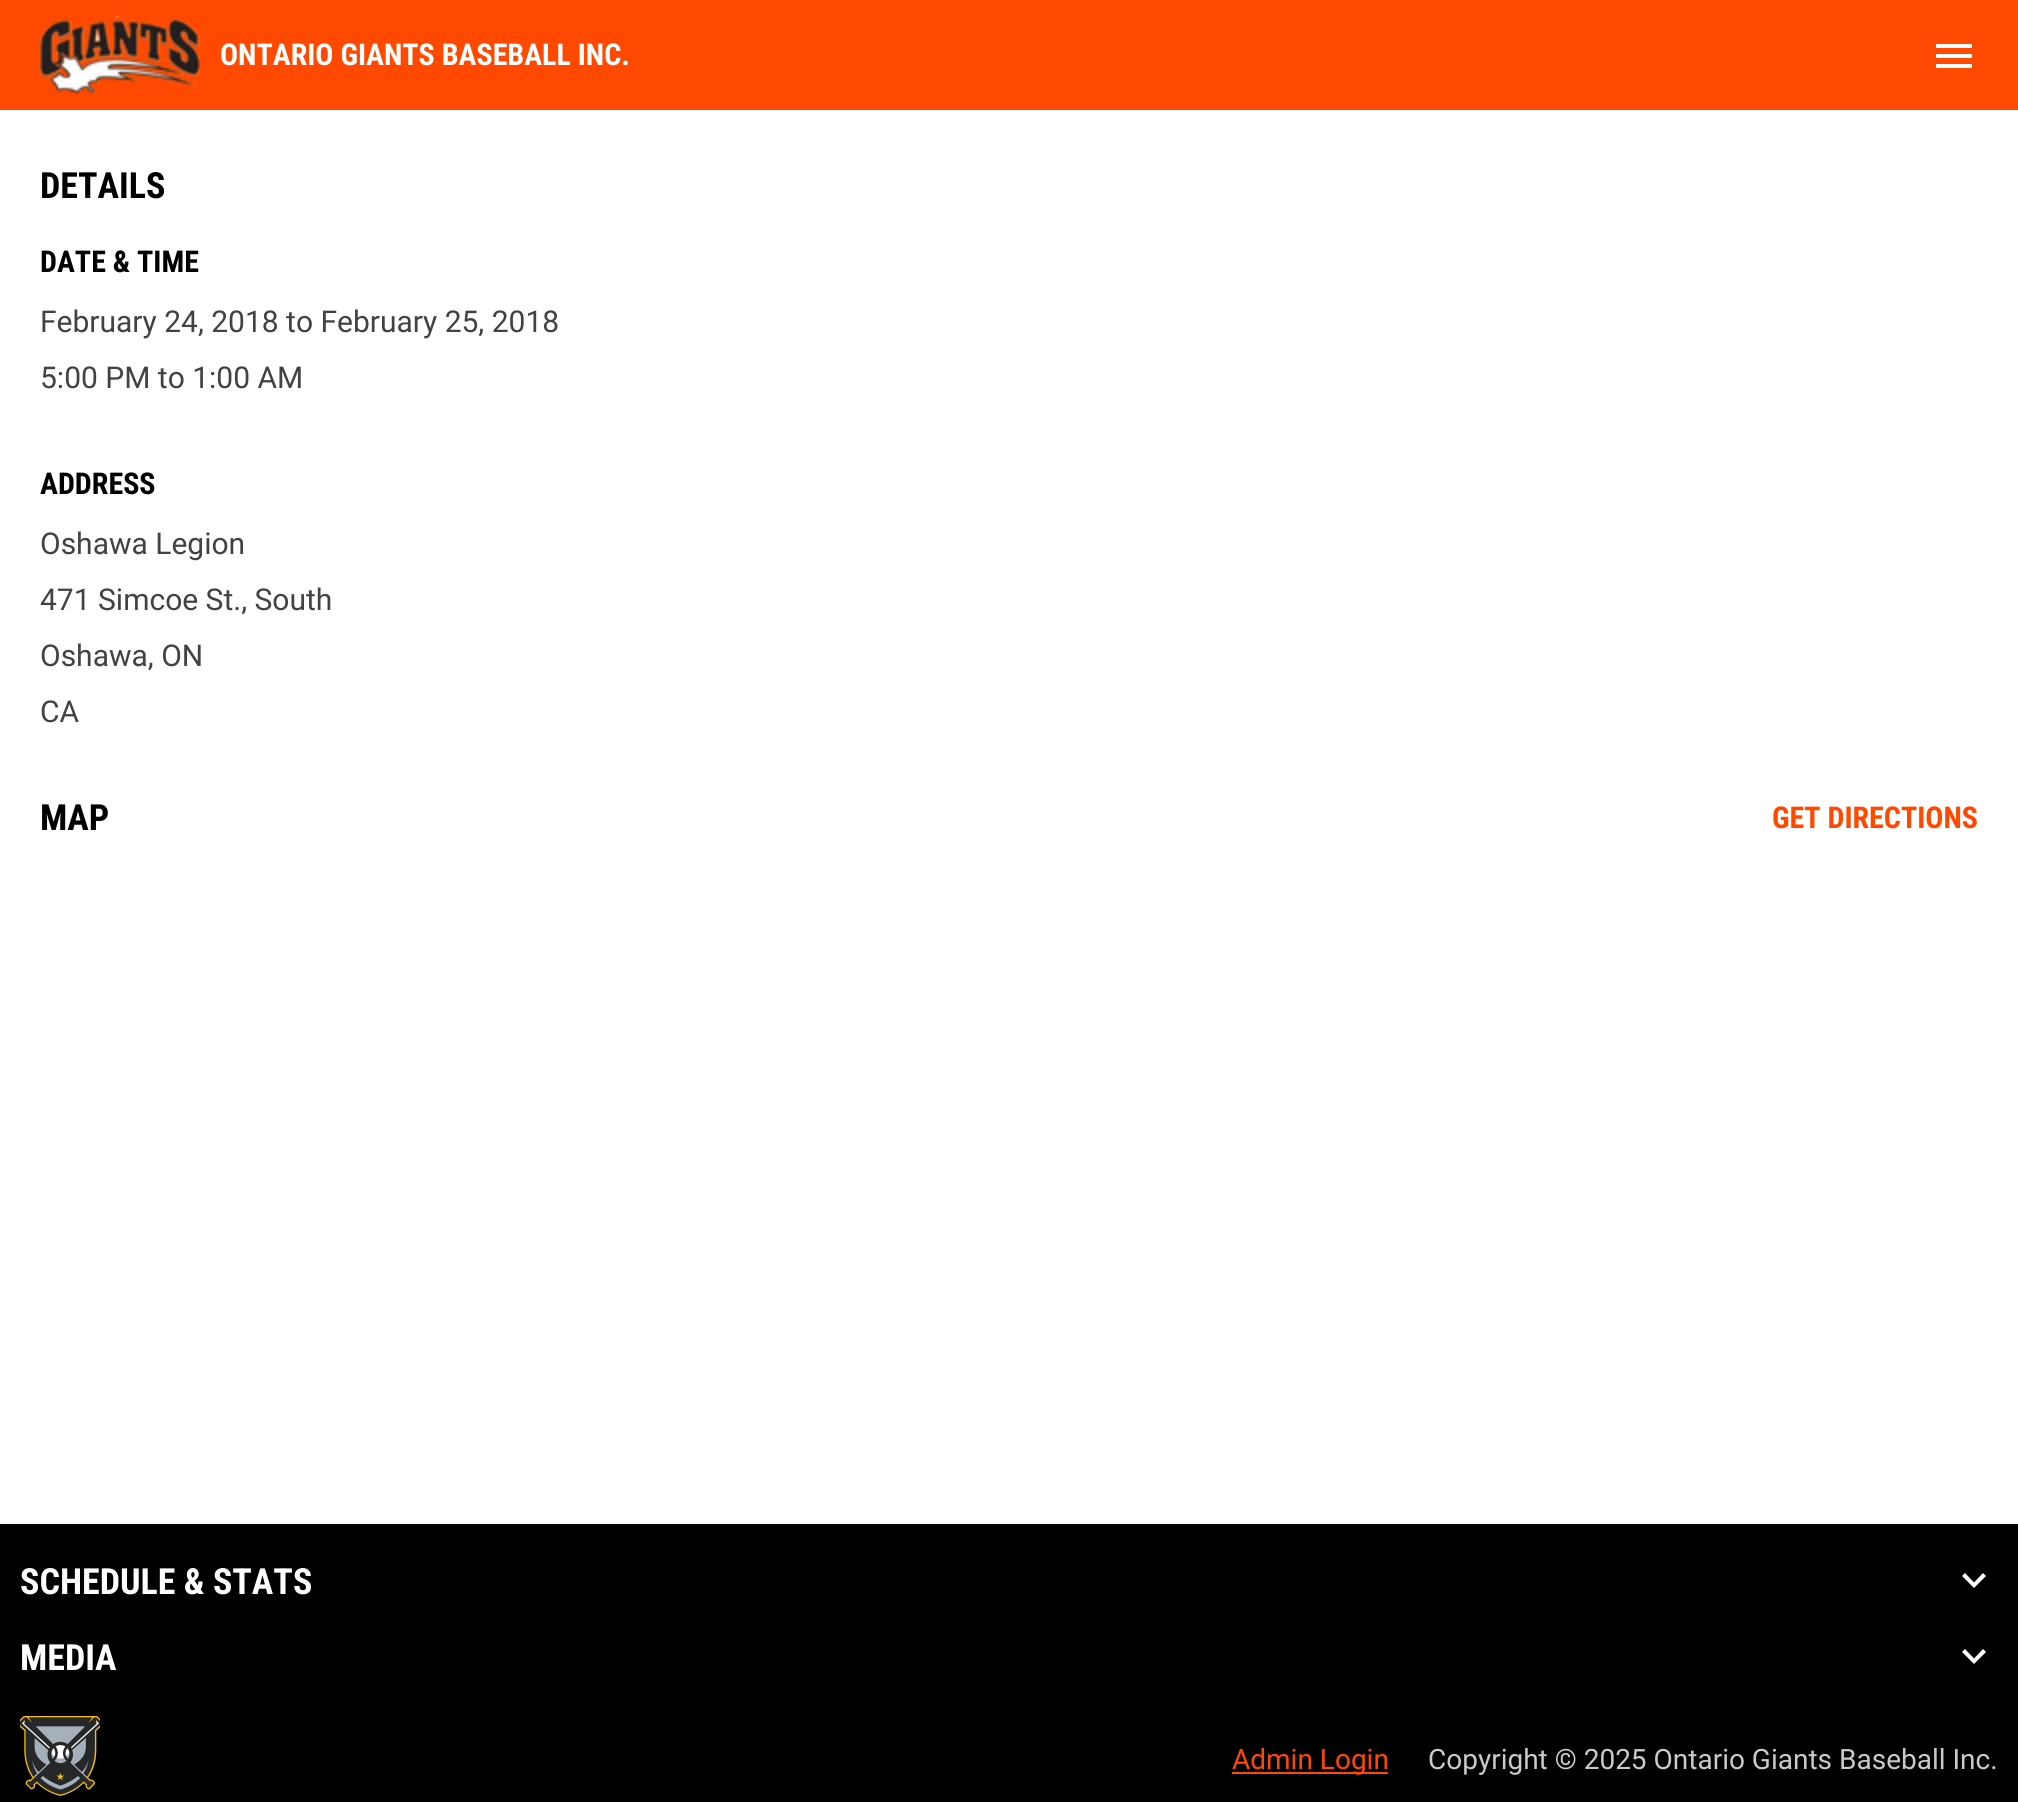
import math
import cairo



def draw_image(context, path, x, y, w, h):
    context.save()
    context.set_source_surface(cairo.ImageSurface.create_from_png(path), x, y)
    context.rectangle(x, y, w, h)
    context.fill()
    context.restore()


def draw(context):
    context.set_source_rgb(1, 1, 1)
    context.paint()
    context.set_source_rgb(1, 73 / 255, 0)
    context.rectangle(0, 0, 2018, 110)
    context.fill()
    draw_image(context, "images/1.png", 40, 16, 160, 78)
    context.set_source_rgb(1, 1, 1)
    context.new_path()
    context.move_to(1936, 44)
    context.line_to(1972, 44)
    context.line_to(1972, 48)
    context.line_to(1936, 48)
    context.close_path()
    context.move_to(1936, 58)
    context.line_to(1936, 54)
    context.line_to(1972, 54)
    context.line_to(1972, 58)
    context.close_path()
    context.move_to(1936, 68)
    context.line_to(1936, 64)
    context.line_to(1972, 64)
    context.line_to(1972, 68)
    context.close_path()
    context.fill()
    context.set_source_rgb(0, 0, 0)
    context.rectangle(0, 1524, 2018, 278)
    context.fill()
    context.set_source_rgb(1, 1, 1)
    context.new_path()
    context.move_to(1965, 1573)
    context.line_to(1974, 1582.5)
    context.line_to(1983, 1573)
    context.line_to(1986, 1576)
    context.line_to(1974, 1588)
    context.line_to(1962, 1576)
    context.close_path()
    context.fill()
    context.new_path()
    context.move_to(1965, 1649)
    context.line_to(1974, 1658.5)
    context.line_to(1983, 1649)
    context.line_to(1986, 1652)
    context.line_to(1974, 1664)
    context.line_to(1962, 1652)
    context.close_path()
    context.fill()
    draw_image(context, "images/2.png", 20, 1716, 80, 80)
    context.set_source_rgb(1, 73 / 255, 0)
    context.rectangle(1232, 1772, 156, 2)
    context.fill()
    context.select_font_face("Roboto Condensed", cairo.FontSlant.NORMAL, cairo.FontWeight.BOLD)
    context.set_font_size(30)
    context.set_source_rgb(1, 1, 1)
    context.move_to(220, 65)
    context.show_text("ONTARIO GIANTS BASEBALL INC.")
    context.set_font_size(36)
    context.set_source_rgb(0, 0, 0)
    context.move_to(40, 198)
    context.show_text("DETAILS")
    context.set_font_size(30)
    context.move_to(40, 272)
    context.show_text("DATE & TIME")
    context.select_font_face("Roboto")
    context.set_source_rgb(66 / 255, 66 / 255, 66 / 255)
    context.move_to(40, 332)
    context.show_text("February 24, 2018 to February 25, 2018")
    context.move_to(40, 388)
    context.show_text("5:00 PM to 1:00 AM")
    context.select_font_face("Roboto Condensed", cairo.FontSlant.NORMAL, cairo.FontWeight.BOLD)
    context.set_source_rgb(0, 0, 0)
    context.move_to(40, 494)
    context.show_text("ADDRESS")
    context.select_font_face("Roboto")
    context.set_source_rgb(66 / 255, 66 / 255, 66 / 255)
    context.move_to(40, 554)
    context.show_text("Oshawa Legion")
    context.move_to(40, 610)
    context.show_text("471 Simcoe St., South")
    context.move_to(40, 666)
    context.show_text("Oshawa, ON")
    context.move_to(40, 722)
    context.show_text("CA")
    context.select_font_face("Roboto Condensed", cairo.FontSlant.NORMAL, cairo.FontWeight.BOLD)
    context.set_font_size(36)
    context.set_source_rgb(0, 0, 0)
    context.move_to(40, 830)
    context.show_text("MAP")
    context.set_font_size(30)
    context.set_source_rgb(1, 73 / 255, 0)
    context.move_to(1772, 828)
    context.show_text("GET DIRECTIONS")
    context.set_font_size(36)
    context.set_source_rgb(1, 1, 1)
    context.move_to(20, 1594)
    context.show_text("SCHEDULE & STATS")
    context.move_to(20, 1670)
    context.show_text("MEDIA")
    context.select_font_face("Roboto")
    context.set_font_size(28)
    context.set_source_rgb(1, 73 / 255, 0)
    context.move_to(1232, 1769)
    context.show_text("Admin Login")
    context.set_source_rgb(202 / 255, 202 / 255, 202 / 255)
    context.move_to(1428, 1769)
    context.show_text("Copyright © 2025 Ontario Giants Baseball Inc.")


surface = cairo.ImageSurface(cairo.Format.RGB24, 2018, 1802)
context = cairo.Context(surface)
options = cairo.FontOptions()
options.set_hint_metrics(cairo.HintMetrics.OFF)
options.set_hint_style(cairo.HintStyle.NONE)
context.set_font_options(options)
context.set_miter_limit(4)
draw(context)
surface.write_to_png("out.png")
